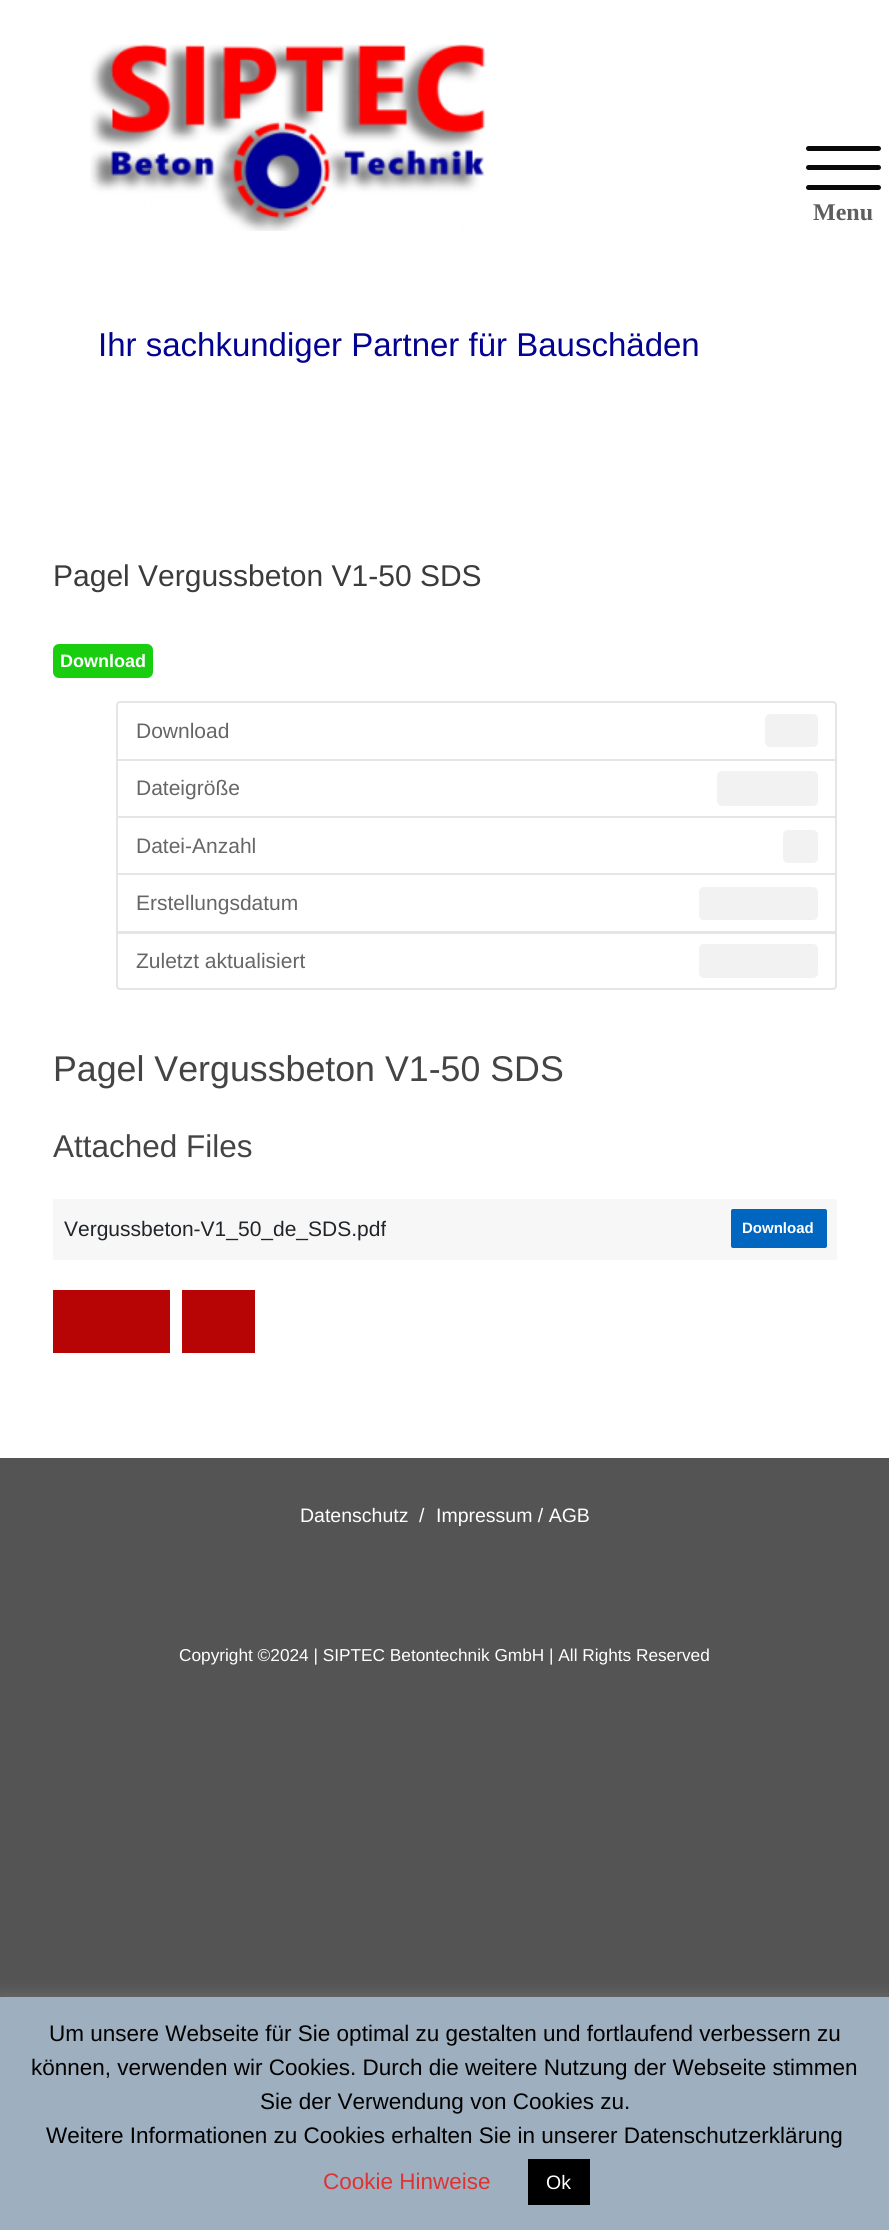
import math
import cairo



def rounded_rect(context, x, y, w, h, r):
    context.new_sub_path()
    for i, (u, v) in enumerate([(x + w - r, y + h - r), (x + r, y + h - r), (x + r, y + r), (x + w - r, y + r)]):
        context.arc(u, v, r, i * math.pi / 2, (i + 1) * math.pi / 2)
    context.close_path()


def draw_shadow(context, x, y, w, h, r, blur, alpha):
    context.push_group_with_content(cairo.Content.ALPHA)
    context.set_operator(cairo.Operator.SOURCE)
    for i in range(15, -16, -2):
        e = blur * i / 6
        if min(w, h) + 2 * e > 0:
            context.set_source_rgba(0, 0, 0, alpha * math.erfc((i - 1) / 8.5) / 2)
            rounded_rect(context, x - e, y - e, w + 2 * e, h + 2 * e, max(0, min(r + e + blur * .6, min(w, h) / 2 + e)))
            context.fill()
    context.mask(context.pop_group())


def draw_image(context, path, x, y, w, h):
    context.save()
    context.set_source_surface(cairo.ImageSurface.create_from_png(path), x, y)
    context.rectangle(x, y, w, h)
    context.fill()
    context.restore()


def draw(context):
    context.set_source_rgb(84 / 255, 84 / 255, 84 / 255)
    context.paint()
    context.set_source_rgb(1, 1, 1)
    context.rectangle(0, 0, 889, 1458)
    context.fill()
    context.set_source_rgb(10 / 255, 10 / 255, 10 / 255)
    rounded_rect(context, 806, 165, 75, 5, 2.5)
    context.fill()
    rounded_rect(context, 806, 146, 75, 5, 2.5)
    context.fill()
    rounded_rect(context, 806, 185, 75, 5, 2.5)
    context.fill()
    draw_image(context, "images/1.png", 90, 44, 395, 187)
    context.set_source_rgb(24 / 255, 206 / 255, 15 / 255)
    rounded_rect(context, 53, 644, 100, 34, 6)
    context.fill()
    context.new_path()
    context.move_to(120, 702)
    context.line_to(833, 702)
    context.curve_to(834.5, 702, 836, 703.5, 836, 705)
    context.line_to(836, 760)
    context.line_to(117, 760)
    context.line_to(117, 705)
    context.curve_to(117, 703.5, 118.5, 702, 120, 702)
    context.close_path()
    context.set_source_rgb(229 / 255, 229 / 255, 229 / 255)
    context.stroke()
    context.set_source_rgb(242 / 255, 242 / 255, 242 / 255)
    rounded_rect(context, 765, 714, 53, 33, 5)
    context.fill()
    context.rectangle(117, 760, 719, 57)
    context.set_source_rgb(229 / 255, 229 / 255, 229 / 255)
    context.stroke()
    context.set_source_rgb(242 / 255, 242 / 255, 242 / 255)
    rounded_rect(context, 717, 771, 101, 35, 5)
    context.fill()
    context.rectangle(117, 817, 719, 57)
    context.set_source_rgb(229 / 255, 229 / 255, 229 / 255)
    context.stroke()
    context.set_source_rgb(242 / 255, 242 / 255, 242 / 255)
    rounded_rect(context, 783, 830, 35, 33, 5)
    context.fill()
    context.rectangle(117, 874, 719, 58)
    context.set_source_rgb(229 / 255, 229 / 255, 229 / 255)
    context.stroke()
    context.set_source_rgb(242 / 255, 242 / 255, 242 / 255)
    rounded_rect(context, 699, 887, 119, 33, 5)
    context.fill()
    context.set_source_rgb(1, 1, 1)
    context.new_path()
    context.move_to(117, 933)
    context.line_to(836, 933)
    context.line_to(836, 986)
    context.curve_to(836, 987.5, 834.5, 989, 833, 989)
    context.line_to(120, 989)
    context.curve_to(118.5, 989, 117, 987.5, 117, 986)
    context.close_path()
    context.fill_preserve()
    context.set_source_rgb(229 / 255, 229 / 255, 229 / 255)
    context.stroke()
    context.set_source_rgb(242 / 255, 242 / 255, 242 / 255)
    rounded_rect(context, 699, 944, 119, 34, 5)
    context.fill()
    context.set_source_rgb(247 / 255, 247 / 255, 247 / 255)
    context.rectangle(53, 1199, 784, 61)
    context.fill()
    context.set_source_rgb(0, 102 / 255, 191 / 255)
    rounded_rect(context, 731, 1209, 96, 39, 2)
    context.fill()
    context.set_source_rgb(183 / 255, 5 / 255, 5 / 255)
    context.rectangle(53, 1290, 117, 63)
    context.fill()
    context.rectangle(182, 1290, 73, 63)
    context.fill()
    context.set_source_rgb(172 / 255, 171 / 255, 171 / 255)
    draw_shadow(context, 0, 1995, 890, 234, 0, 7.5, 0.3)
    context.set_source_rgb(158 / 255, 175 / 255, 191 / 255)
    context.rectangle(0, 1997, 889, 233)
    context.fill()
    context.set_source_rgb(0, 0, 0)
    context.rectangle(528, 2159, 62, 46)
    context.fill()
    context.select_font_face("Liberation Serif", cairo.FontSlant.NORMAL, cairo.FontWeight.BOLD)
    context.set_font_size(24)
    context.set_source_rgb(94 / 255, 94 / 255, 94 / 255)
    context.move_to(813, 220)
    context.show_text("Menu")
    context.select_font_face("Liberation Sans")
    context.set_font_size(33)
    context.set_source_rgb(3 / 255, 3 / 255, 145 / 255)
    context.move_to(98, 356)
    context.show_text("Ihr sachkundiger Partner für Bauschäden")
    context.set_font_size(30)
    context.set_source_rgb(59 / 255, 59 / 255, 59 / 255)
    context.move_to(53, 586)
    context.show_text("Pagel Vergussbeton V1-50 SDS")
    context.select_font_face("Liberation Sans", cairo.FontSlant.NORMAL, cairo.FontWeight.BOLD)
    context.set_font_size(18)
    context.set_source_rgb(1, 1, 1)
    context.move_to(60, 667)
    context.show_text("Download")
    context.select_font_face("Liberation Sans")
    context.set_font_size(21)
    context.set_source_rgb(102 / 255, 102 / 255, 102 / 255)
    context.move_to(136, 738)
    context.show_text("Download")
    context.move_to(136, 795)
    context.show_text("Dateigröße")
    context.move_to(136, 853)
    context.show_text("Datei-Anzahl")
    context.move_to(136, 910)
    context.show_text("Erstellungsdatum")
    context.move_to(136, 968)
    context.show_text("Zuletzt aktualisiert")
    context.set_font_size(35.75)
    context.set_source_rgb(68 / 255, 68 / 255, 68 / 255)
    context.move_to(53, 1081)
    context.show_text("Pagel Vergussbeton V1-50 SDS")
    context.set_font_size(31.5)
    context.move_to(53, 1157)
    context.show_text("Attached Files")
    context.set_font_size(21)
    context.set_source_rgb(33 / 255, 37 / 255, 41 / 255)
    context.move_to(64, 1236)
    context.show_text("Vergussbeton-V1_50_de_SDS.pdf")
    context.select_font_face("Liberation Sans", cairo.FontSlant.NORMAL, cairo.FontWeight.BOLD)
    context.set_font_size(15)
    context.set_source_rgb(1, 1, 1)
    context.move_to(742, 1233)
    context.show_text("Download")
    context.select_font_face("Liberation Sans")
    context.set_font_size(19.5)
    context.move_to(300, 1522)
    context.show_text("Datenschutz")
    context.move_to(419, 1522)
    context.show_text("/")
    context.move_to(436, 1522)
    context.show_text("Impressum / AGB")
    context.set_font_size(17.25)
    context.move_to(179, 1661)
    context.show_text("Copyright ©2024 | SIPTEC Betontechnik GmbH | All Rights Reserved")
    context.set_font_size(22.5)
    context.set_source_rgb(0, 0, 0)
    context.move_to(49, 2041)
    context.show_text("Um unsere Webseite für Sie optimal zu gestalten und fortlaufend verbessern zu")
    context.move_to(31, 2075)
    context.show_text("können, verwenden wir Cookies. Durch die weitere Nutzung der Webseite stimmen")
    context.move_to(260, 2109)
    context.show_text("Sie der Verwendung von Cookies zu.")
    context.move_to(46, 2143)
    context.show_text("Weitere Informationen zu Cookies erhalten Sie in unserer Datenschutzerklärung")
    context.set_source_rgb(221 / 255, 51 / 255, 51 / 255)
    context.move_to(323, 2189)
    context.show_text("Cookie Hinweise")
    context.set_font_size(19.5)
    context.set_source_rgb(1, 1, 1)
    context.move_to(546, 2189)
    context.show_text("Ok")


surface = cairo.ImageSurface(cairo.Format.RGB24, 889, 2230)
context = cairo.Context(surface)
options = cairo.FontOptions()
options.set_hint_metrics(cairo.HintMetrics.OFF)
options.set_hint_style(cairo.HintStyle.NONE)
context.set_font_options(options)
context.set_miter_limit(4)
draw(context)
surface.write_to_png("out.png")
